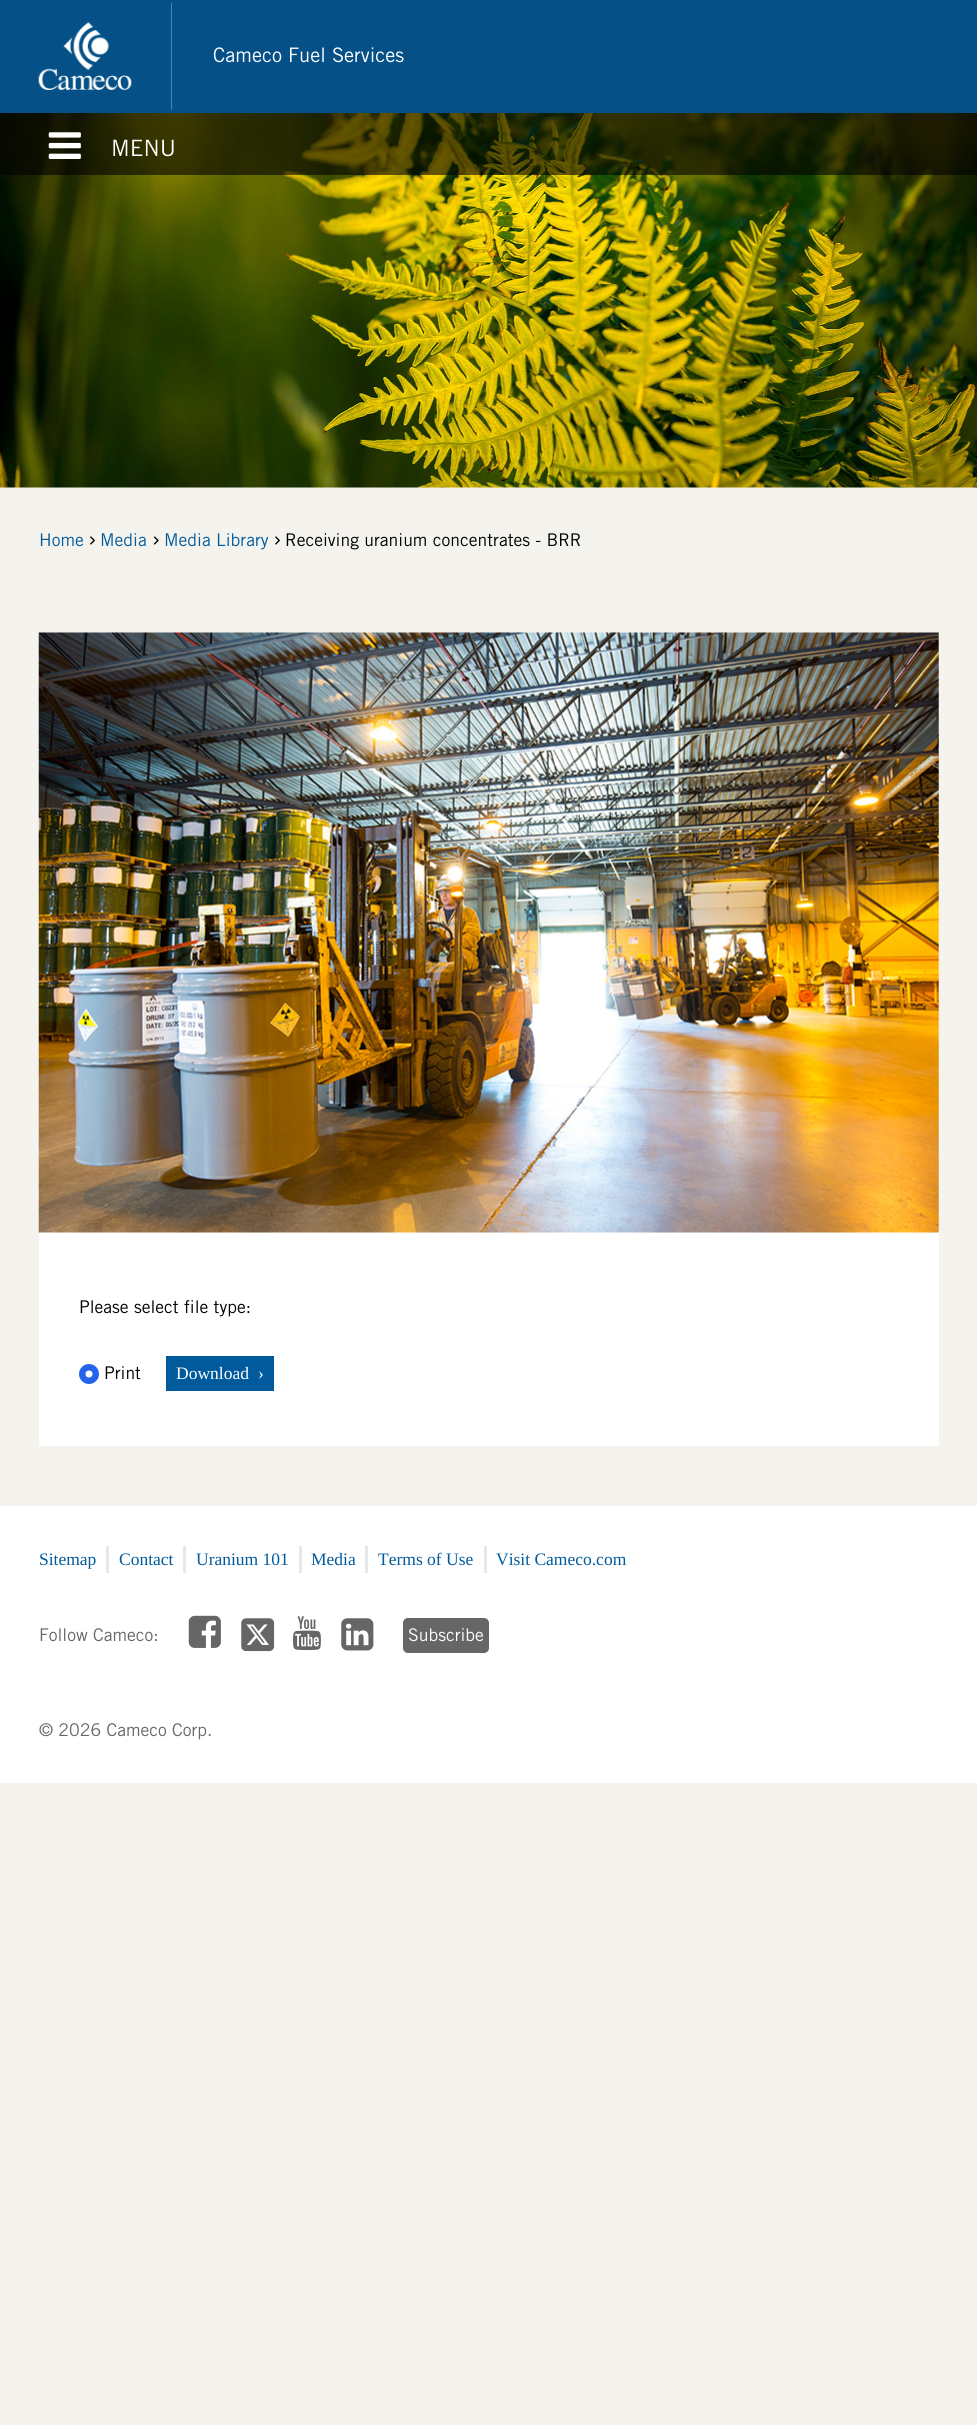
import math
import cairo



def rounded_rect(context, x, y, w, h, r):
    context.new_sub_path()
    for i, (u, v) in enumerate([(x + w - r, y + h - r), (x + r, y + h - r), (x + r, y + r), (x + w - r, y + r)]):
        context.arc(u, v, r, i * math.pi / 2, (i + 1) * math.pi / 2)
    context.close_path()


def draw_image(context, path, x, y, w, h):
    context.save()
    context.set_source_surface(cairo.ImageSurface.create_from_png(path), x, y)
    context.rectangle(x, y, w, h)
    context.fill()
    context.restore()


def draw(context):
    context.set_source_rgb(245 / 255, 243 / 255, 237 / 255)
    context.paint()
    draw_image(context, "images/3.png", 0, 113, 977, 375)
    context.set_source_rgba(0, 0, 0, 0.6)
    context.rectangle(0, 113, 977, 62)
    context.fill()
    context.set_source_rgb(5 / 255, 81 / 255, 135 / 255)
    context.rectangle(0, 0, 977, 113)
    context.fill()
    context.set_source_rgb(80 / 255, 133 / 255, 171 / 255)
    context.rectangle(171, 3, 1, 107)
    context.fill()
    draw_image(context, "images/1.png", 38, 22, 94, 68)
    draw_image(context, "images/2.png", 48, 132, 33, 27)
    draw_image(context, "images/4.png", 90, 536, 5, 9)
    draw_image(context, "images/5.png", 153, 536, 6, 9)
    draw_image(context, "images/4.png", 275, 536, 5, 9)
    context.set_source_rgb(1, 1, 1)
    context.rectangle(39, 633, 900, 813)
    context.fill()
    draw_image(context, "images/6.png", 38, 632, 901, 601)
    context.set_source_rgb(37 / 255, 99 / 255, 235 / 255)
    context.arc(89, 1374, 10, 0, 2 * math.pi)
    context.fill()
    context.set_source_rgb(1, 1, 1)
    context.arc(89, 1374, 3.5, 0, 2 * math.pi)
    context.fill()
    context.set_source_rgb(0, 90 / 255, 156 / 255)
    context.rectangle(166, 1356, 108, 35)
    context.fill()
    context.set_source_rgb(1, 1, 1)
    context.rectangle(0, 1506, 977, 277)
    context.fill()
    context.set_source_rgb(229 / 255, 231 / 255, 235 / 255)
    context.rectangle(106, 1546, 3, 27)
    context.fill()
    context.rectangle(183, 1546, 3, 27)
    context.fill()
    context.rectangle(299, 1546, 3, 27)
    context.fill()
    context.rectangle(365, 1546, 3, 27)
    context.fill()
    context.rectangle(484, 1546, 3, 27)
    context.fill()
    draw_image(context, "images/7.png", 188, 1615, 33, 33)
    draw_image(context, "images/8.png", 241, 1618, 34, 34)
    draw_image(context, "images/9.png", 293, 1616, 28, 35)
    draw_image(context, "images/10.png", 341, 1618, 33, 33)
    context.set_source_rgb(102 / 255, 102 / 255, 102 / 255)
    rounded_rect(context, 403, 1618, 86, 35, 5)
    context.fill()
    context.select_font_face("Trade Gothic")
    context.set_font_size(20)
    context.set_source_rgb(1, 1, 1)
    context.move_to(213, 62)
    context.show_text("Cameco Fuel Services")
    context.set_font_size(22.5)
    context.move_to(111, 156)
    context.show_text("MENU")
    context.set_font_size(17.5)
    context.set_source_rgb(0, 90 / 255, 156 / 255)
    context.move_to(39, 546)
    context.show_text("Home")
    context.move_to(100, 546)
    context.show_text("Media")
    context.move_to(164, 546)
    context.show_text("Media Library")
    context.set_source_rgb(0, 0, 0)
    context.move_to(285, 546)
    context.show_text("Receiving uranium concentrates - BRR")
    context.move_to(79, 1313)
    context.show_text("Please select file type:")
    context.move_to(104, 1379)
    context.show_text("Print")
    context.select_font_face("Liberation Serif")
    context.set_source_rgb(1, 1, 1)
    context.move_to(176, 1379)
    context.show_text("Download")
    context.move_to(258, 1379)
    context.show_text("›")
    context.set_source_rgb(0, 90 / 255, 156 / 255)
    context.move_to(39, 1565)
    context.show_text("Sitemap")
    context.move_to(119, 1565)
    context.show_text("Contact")
    context.move_to(196, 1565)
    context.show_text("Uranium 101")
    context.move_to(311, 1565)
    context.show_text("Media")
    context.move_to(378, 1565)
    context.show_text("Terms of Use")
    context.move_to(496, 1565)
    context.show_text("Visit Cameco.com")
    context.select_font_face("Trade Gothic")
    context.set_source_rgb(102 / 255, 102 / 255, 102 / 255)
    context.move_to(39, 1641)
    context.show_text("Follow Cameco:")
    context.set_source_rgb(1, 1, 1)
    context.move_to(408, 1641)
    context.show_text("Subscribe")
    context.set_source_rgb(102 / 255, 102 / 255, 102 / 255)
    context.move_to(39, 1736)
    context.show_text("© 2026 Cameco Corp.")


surface = cairo.ImageSurface(cairo.Format.RGB24, 977, 2425)
context = cairo.Context(surface)
options = cairo.FontOptions()
options.set_hint_metrics(cairo.HintMetrics.OFF)
options.set_hint_style(cairo.HintStyle.NONE)
context.set_font_options(options)
context.set_miter_limit(4)
draw(context)
surface.write_to_png("out.png")
